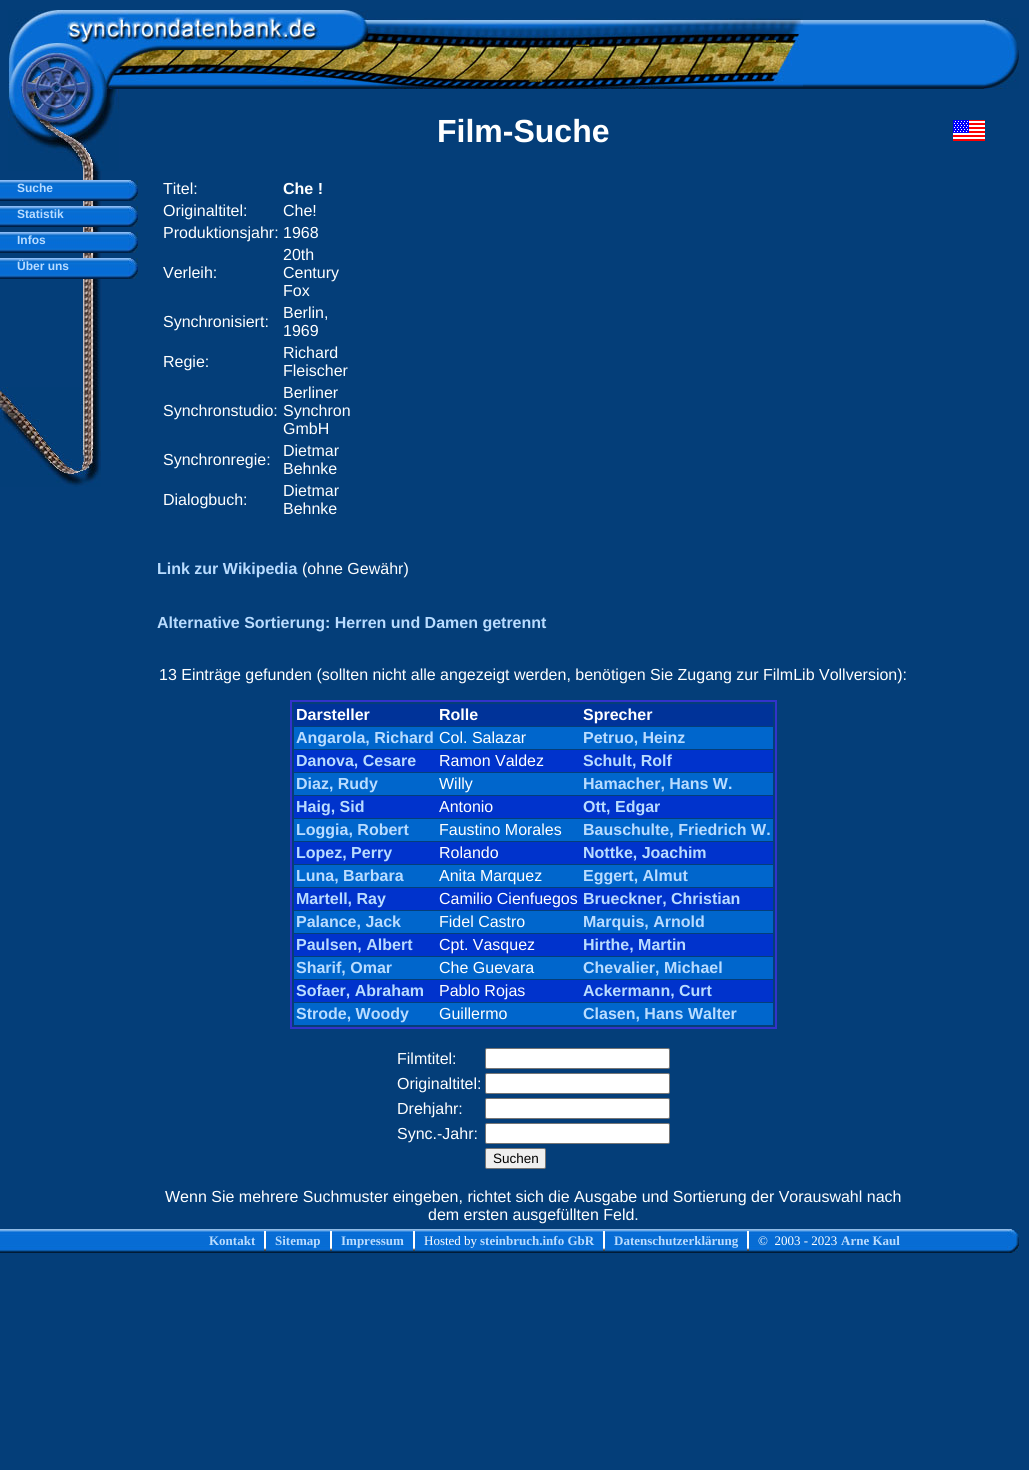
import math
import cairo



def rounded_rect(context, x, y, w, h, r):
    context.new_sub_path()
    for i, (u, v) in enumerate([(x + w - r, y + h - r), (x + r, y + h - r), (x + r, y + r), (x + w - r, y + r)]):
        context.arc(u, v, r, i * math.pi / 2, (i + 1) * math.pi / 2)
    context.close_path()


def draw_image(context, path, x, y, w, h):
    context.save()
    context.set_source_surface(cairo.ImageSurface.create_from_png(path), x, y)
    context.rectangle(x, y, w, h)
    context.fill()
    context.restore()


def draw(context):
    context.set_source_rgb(4 / 255, 62 / 255, 121 / 255)
    context.paint()
    draw_image(context, "images/7.png", 83, 171, 19, 216)
    draw_image(context, "images/1.png", 0, 180, 138, 21)
    draw_image(context, "images/1.png", 0, 206, 138, 21)
    draw_image(context, "images/1.png", 0, 232, 138, 21)
    draw_image(context, "images/1.png", 0, 258, 138, 21)
    draw_image(context, "images/2.png", 8, 10, 795, 79)
    draw_image(context, "images/3.png", 803, 20, 181, 69)
    draw_image(context, "images/4.png", 984, 18, 35, 71)
    draw_image(context, "images/5.png", 8, 89, 111, 82)
    draw_image(context, "images/6.png", 953, 120, 32, 21)
    draw_image(context, "images/8.png", 0, 387, 101, 100)
    context.rectangle(291, 701, 485, 327)
    context.set_source_rgb(51 / 255, 51 / 255, 204 / 255)
    context.stroke()
    context.set_source_rgb(0, 51 / 255, 153 / 255)
    context.rectangle(294, 704, 479, 22)
    context.fill()
    context.set_source_rgb(0, 102 / 255, 204 / 255)
    context.rectangle(294, 727, 479, 22)
    context.fill()
    context.set_source_rgb(0, 51 / 255, 204 / 255)
    context.rectangle(294, 750, 479, 22)
    context.fill()
    context.set_source_rgb(0, 102 / 255, 204 / 255)
    context.rectangle(294, 773, 479, 22)
    context.fill()
    context.set_source_rgb(0, 51 / 255, 204 / 255)
    context.rectangle(294, 796, 479, 22)
    context.fill()
    context.set_source_rgb(0, 102 / 255, 204 / 255)
    context.rectangle(294, 819, 479, 22)
    context.fill()
    context.set_source_rgb(0, 51 / 255, 204 / 255)
    context.rectangle(294, 842, 479, 22)
    context.fill()
    context.set_source_rgb(0, 102 / 255, 204 / 255)
    context.rectangle(294, 865, 479, 22)
    context.fill()
    context.set_source_rgb(0, 51 / 255, 204 / 255)
    context.rectangle(294, 888, 479, 22)
    context.fill()
    context.set_source_rgb(0, 102 / 255, 204 / 255)
    context.rectangle(294, 911, 479, 22)
    context.fill()
    context.set_source_rgb(0, 51 / 255, 204 / 255)
    context.rectangle(294, 934, 479, 22)
    context.fill()
    context.set_source_rgb(0, 102 / 255, 204 / 255)
    context.rectangle(294, 957, 479, 22)
    context.fill()
    context.set_source_rgb(0, 51 / 255, 204 / 255)
    context.rectangle(294, 980, 479, 22)
    context.fill()
    context.set_source_rgb(0, 102 / 255, 204 / 255)
    context.rectangle(294, 1003, 479, 22)
    context.fill()
    context.set_source_rgb(1, 1, 1)
    rounded_rect(context, 485.5, 1048.5, 184, 20, 1.5)
    context.fill_preserve()
    context.set_source_rgb(118 / 255, 118 / 255, 118 / 255)
    context.set_line_width(1)
    context.stroke()
    context.set_source_rgb(1, 1, 1)
    rounded_rect(context, 485.5, 1073.5, 184, 20, 1.5)
    context.fill_preserve()
    context.set_source_rgb(118 / 255, 118 / 255, 118 / 255)
    context.stroke()
    context.set_source_rgb(1, 1, 1)
    rounded_rect(context, 485.5, 1098.5, 184, 20, 1.5)
    context.fill_preserve()
    context.set_source_rgb(118 / 255, 118 / 255, 118 / 255)
    context.stroke()
    context.set_source_rgb(1, 1, 1)
    rounded_rect(context, 485.5, 1123.5, 184, 20, 1.5)
    context.fill_preserve()
    context.set_source_rgb(118 / 255, 118 / 255, 118 / 255)
    context.stroke()
    context.set_source_rgb(239 / 255, 239 / 255, 239 / 255)
    rounded_rect(context, 485.5, 1148.5, 60, 20, 1.5)
    context.fill_preserve()
    context.set_source_rgb(118 / 255, 118 / 255, 118 / 255)
    context.stroke()
    draw_image(context, "images/9.png", 0, 1229, 102, 24)
    draw_image(context, "images/10.png", 102, 1229, 905, 24)
    draw_image(context, "images/11.png", 264, 1231, 2, 20)
    draw_image(context, "images/11.png", 330, 1231, 2, 20)
    draw_image(context, "images/11.png", 413, 1231, 2, 20)
    draw_image(context, "images/11.png", 603, 1231, 2, 20)
    draw_image(context, "images/11.png", 747, 1231, 2, 20)
    draw_image(context, "images/12.png", 1007, 1229, 12, 24)
    context.select_font_face("Liberation Sans", cairo.FontSlant.NORMAL, cairo.FontWeight.BOLD)
    context.set_font_size(12)
    context.set_source_rgb(185 / 255, 220 / 255, 1)
    context.move_to(17, 192)
    context.show_text("Suche")
    context.move_to(17, 218)
    context.show_text("Statistik")
    context.move_to(17, 244)
    context.show_text("Infos")
    context.move_to(17, 270)
    context.show_text("Über uns")
    context.set_font_size(32)
    context.set_source_rgb(1, 1, 1)
    context.move_to(437, 142)
    context.show_text("Film-Suche")
    context.select_font_face("Liberation Sans")
    context.set_font_size(16)
    context.move_to(163, 194)
    context.show_text("Titel:")
    context.select_font_face("Liberation Sans", cairo.FontSlant.NORMAL, cairo.FontWeight.BOLD)
    context.move_to(283, 194)
    context.show_text("Che !")
    context.select_font_face("Liberation Sans")
    context.move_to(163, 216)
    context.show_text("Originaltitel:")
    context.move_to(283, 216)
    context.show_text("Che!")
    context.move_to(163, 238)
    context.show_text("Produktionsjahr:")
    context.move_to(283, 238)
    context.show_text("1968")
    context.move_to(163, 278)
    context.show_text("Verleih:")
    context.move_to(283, 260)
    context.show_text("20th")
    context.move_to(283, 278)
    context.show_text("Century")
    context.move_to(283, 296)
    context.show_text("Fox")
    context.move_to(163, 327)
    context.show_text("Synchronisiert:")
    context.move_to(283, 318)
    context.show_text("Berlin,")
    context.move_to(283, 336)
    context.show_text("1969")
    context.move_to(163, 367)
    context.show_text("Regie:")
    context.move_to(283, 358)
    context.show_text("Richard")
    context.move_to(283, 376)
    context.show_text("Fleischer")
    context.move_to(163, 416)
    context.show_text("Synchronstudio:")
    context.move_to(283, 398)
    context.show_text("Berliner")
    context.move_to(283, 416)
    context.show_text("Synchron")
    context.move_to(283, 434)
    context.show_text("GmbH")
    context.move_to(163, 465)
    context.show_text("Synchronregie:")
    context.move_to(283, 456)
    context.show_text("Dietmar")
    context.move_to(283, 474)
    context.show_text("Behnke")
    context.move_to(163, 505)
    context.show_text("Dialogbuch:")
    context.move_to(283, 496)
    context.show_text("Dietmar")
    context.move_to(283, 514)
    context.show_text("Behnke")
    context.select_font_face("Liberation Sans", cairo.FontSlant.NORMAL, cairo.FontWeight.BOLD)
    context.set_source_rgb(185 / 255, 220 / 255, 1)
    context.move_to(157, 574)
    context.show_text("Link zur Wikipedia")
    context.select_font_face("Liberation Sans")
    context.set_source_rgb(1, 1, 1)
    context.move_to(302, 574)
    context.show_text("(ohne Gewähr)")
    context.select_font_face("Liberation Sans", cairo.FontSlant.NORMAL, cairo.FontWeight.BOLD)
    context.set_source_rgb(185 / 255, 220 / 255, 1)
    context.move_to(157, 628)
    context.show_text("Alternative Sortierung: Herren und Damen getrennt")
    context.select_font_face("Liberation Sans")
    context.set_source_rgb(1, 1, 1)
    context.move_to(159, 680)
    context.show_text("13 Einträge gefunden (sollten nicht alle angezeigt werden, benötigen Sie Zugang zur FilmLib Vollversion):")
    context.select_font_face("Liberation Sans", cairo.FontSlant.NORMAL, cairo.FontWeight.BOLD)
    context.move_to(296, 720)
    context.show_text("Darsteller")
    context.move_to(439, 720)
    context.show_text("Rolle")
    context.move_to(583, 720)
    context.show_text("Sprecher")
    context.set_source_rgb(185 / 255, 220 / 255, 1)
    context.move_to(296, 743)
    context.show_text("Angarola, Richard")
    context.select_font_face("Liberation Sans")
    context.set_source_rgb(1, 1, 1)
    context.move_to(439, 743)
    context.show_text("Col. Salazar")
    context.select_font_face("Liberation Sans", cairo.FontSlant.NORMAL, cairo.FontWeight.BOLD)
    context.set_source_rgb(185 / 255, 220 / 255, 1)
    context.move_to(583, 743)
    context.show_text("Petruo, Heinz")
    context.move_to(296, 766)
    context.show_text("Danova, Cesare")
    context.select_font_face("Liberation Sans")
    context.set_source_rgb(1, 1, 1)
    context.move_to(439, 766)
    context.show_text("Ramon Valdez")
    context.select_font_face("Liberation Sans", cairo.FontSlant.NORMAL, cairo.FontWeight.BOLD)
    context.set_source_rgb(185 / 255, 220 / 255, 1)
    context.move_to(583, 766)
    context.show_text("Schult, Rolf")
    context.move_to(296, 789)
    context.show_text("Diaz, Rudy")
    context.select_font_face("Liberation Sans")
    context.set_source_rgb(1, 1, 1)
    context.move_to(439, 789)
    context.show_text("Willy")
    context.select_font_face("Liberation Sans", cairo.FontSlant.NORMAL, cairo.FontWeight.BOLD)
    context.set_source_rgb(185 / 255, 220 / 255, 1)
    context.move_to(583, 789)
    context.show_text("Hamacher, Hans W.")
    context.move_to(296, 812)
    context.show_text("Haig, Sid")
    context.select_font_face("Liberation Sans")
    context.set_source_rgb(1, 1, 1)
    context.move_to(439, 812)
    context.show_text("Antonio")
    context.select_font_face("Liberation Sans", cairo.FontSlant.NORMAL, cairo.FontWeight.BOLD)
    context.set_source_rgb(185 / 255, 220 / 255, 1)
    context.move_to(583, 812)
    context.show_text("Ott, Edgar")
    context.move_to(296, 835)
    context.show_text("Loggia, Robert")
    context.select_font_face("Liberation Sans")
    context.set_source_rgb(1, 1, 1)
    context.move_to(439, 835)
    context.show_text("Faustino Morales")
    context.select_font_face("Liberation Sans", cairo.FontSlant.NORMAL, cairo.FontWeight.BOLD)
    context.set_source_rgb(185 / 255, 220 / 255, 1)
    context.move_to(583, 835)
    context.show_text("Bauschulte, Friedrich W.")
    context.move_to(296, 858)
    context.show_text("Lopez, Perry")
    context.select_font_face("Liberation Sans")
    context.set_source_rgb(1, 1, 1)
    context.move_to(439, 858)
    context.show_text("Rolando")
    context.select_font_face("Liberation Sans", cairo.FontSlant.NORMAL, cairo.FontWeight.BOLD)
    context.set_source_rgb(185 / 255, 220 / 255, 1)
    context.move_to(583, 858)
    context.show_text("Nottke, Joachim")
    context.move_to(296, 881)
    context.show_text("Luna, Barbara")
    context.select_font_face("Liberation Sans")
    context.set_source_rgb(1, 1, 1)
    context.move_to(439, 881)
    context.show_text("Anita Marquez")
    context.select_font_face("Liberation Sans", cairo.FontSlant.NORMAL, cairo.FontWeight.BOLD)
    context.set_source_rgb(185 / 255, 220 / 255, 1)
    context.move_to(583, 881)
    context.show_text("Eggert, Almut")
    context.move_to(296, 904)
    context.show_text("Martell, Ray")
    context.select_font_face("Liberation Sans")
    context.set_source_rgb(1, 1, 1)
    context.move_to(439, 904)
    context.show_text("Camilio Cienfuegos")
    context.select_font_face("Liberation Sans", cairo.FontSlant.NORMAL, cairo.FontWeight.BOLD)
    context.set_source_rgb(185 / 255, 220 / 255, 1)
    context.move_to(583, 904)
    context.show_text("Brueckner, Christian")
    context.move_to(296, 927)
    context.show_text("Palance, Jack")
    context.select_font_face("Liberation Sans")
    context.set_source_rgb(1, 1, 1)
    context.move_to(439, 927)
    context.show_text("Fidel Castro")
    context.select_font_face("Liberation Sans", cairo.FontSlant.NORMAL, cairo.FontWeight.BOLD)
    context.set_source_rgb(185 / 255, 220 / 255, 1)
    context.move_to(583, 927)
    context.show_text("Marquis, Arnold")
    context.move_to(296, 950)
    context.show_text("Paulsen, Albert")
    context.select_font_face("Liberation Sans")
    context.set_source_rgb(1, 1, 1)
    context.move_to(439, 950)
    context.show_text("Cpt. Vasquez")
    context.select_font_face("Liberation Sans", cairo.FontSlant.NORMAL, cairo.FontWeight.BOLD)
    context.set_source_rgb(185 / 255, 220 / 255, 1)
    context.move_to(583, 950)
    context.show_text("Hirthe, Martin")
    context.move_to(296, 973)
    context.show_text("Sharif, Omar")
    context.select_font_face("Liberation Sans")
    context.set_source_rgb(1, 1, 1)
    context.move_to(439, 973)
    context.show_text("Che Guevara")
    context.select_font_face("Liberation Sans", cairo.FontSlant.NORMAL, cairo.FontWeight.BOLD)
    context.set_source_rgb(185 / 255, 220 / 255, 1)
    context.move_to(583, 973)
    context.show_text("Chevalier, Michael")
    context.move_to(296, 996)
    context.show_text("Sofaer, Abraham")
    context.select_font_face("Liberation Sans")
    context.set_source_rgb(1, 1, 1)
    context.move_to(439, 996)
    context.show_text("Pablo Rojas")
    context.select_font_face("Liberation Sans", cairo.FontSlant.NORMAL, cairo.FontWeight.BOLD)
    context.set_source_rgb(185 / 255, 220 / 255, 1)
    context.move_to(583, 996)
    context.show_text("Ackermann, Curt")
    context.move_to(296, 1019)
    context.show_text("Strode, Woody")
    context.select_font_face("Liberation Sans")
    context.set_source_rgb(1, 1, 1)
    context.move_to(439, 1019)
    context.show_text("Guillermo")
    context.select_font_face("Liberation Sans", cairo.FontSlant.NORMAL, cairo.FontWeight.BOLD)
    context.set_source_rgb(185 / 255, 220 / 255, 1)
    context.move_to(583, 1019)
    context.show_text("Clasen, Hans Walter")
    context.select_font_face("Liberation Sans")
    context.set_source_rgb(1, 1, 1)
    context.move_to(397, 1064)
    context.show_text("Filmtitel:")
    context.move_to(397, 1089)
    context.show_text("Originaltitel:")
    context.move_to(397, 1114)
    context.show_text("Drehjahr:")
    context.move_to(397, 1139)
    context.show_text("Sync.-Jahr:")
    context.set_font_size(13.5)
    context.set_source_rgb(0, 0, 0)
    context.move_to(493, 1163)
    context.show_text("Suchen")
    context.set_font_size(16)
    context.set_source_rgb(1, 1, 1)
    context.move_to(165, 1202)
    context.show_text("Wenn Sie mehrere Suchmuster eingeben, richtet sich die Ausgabe und Sortierung der Vorauswahl nach")
    context.move_to(428, 1220)
    context.show_text("dem ersten ausgefüllten Feld.")
    context.select_font_face("Liberation Serif", cairo.FontSlant.NORMAL, cairo.FontWeight.BOLD)
    context.set_font_size(13)
    context.set_source_rgb(185 / 255, 220 / 255, 1)
    context.move_to(209, 1245)
    context.show_text("Kontakt")
    context.move_to(275, 1245)
    context.show_text("Sitemap")
    context.move_to(341, 1245)
    context.show_text("Impressum")
    context.select_font_face("Liberation Serif")
    context.set_source_rgb(1, 1, 1)
    context.move_to(424, 1245)
    context.show_text("Hosted by")
    context.select_font_face("Liberation Serif", cairo.FontSlant.NORMAL, cairo.FontWeight.BOLD)
    context.set_source_rgb(185 / 255, 220 / 255, 1)
    context.move_to(480, 1245)
    context.show_text("steinbruch.info GbR")
    context.move_to(614, 1245)
    context.show_text("Datenschutzerklärung")
    context.select_font_face("Liberation Serif")
    context.set_source_rgb(1, 1, 1)
    context.move_to(758, 1245)
    context.show_text("©  2003 - 2023")
    context.select_font_face("Liberation Serif", cairo.FontSlant.NORMAL, cairo.FontWeight.BOLD)
    context.set_source_rgb(185 / 255, 220 / 255, 1)
    context.move_to(841, 1245)
    context.show_text("Arne Kaul")


surface = cairo.ImageSurface(cairo.Format.RGB24, 1029, 1470)
context = cairo.Context(surface)
options = cairo.FontOptions()
options.set_hint_metrics(cairo.HintMetrics.OFF)
options.set_hint_style(cairo.HintStyle.NONE)
context.set_font_options(options)
context.set_miter_limit(4)
draw(context)
surface.write_to_png("out.png")
